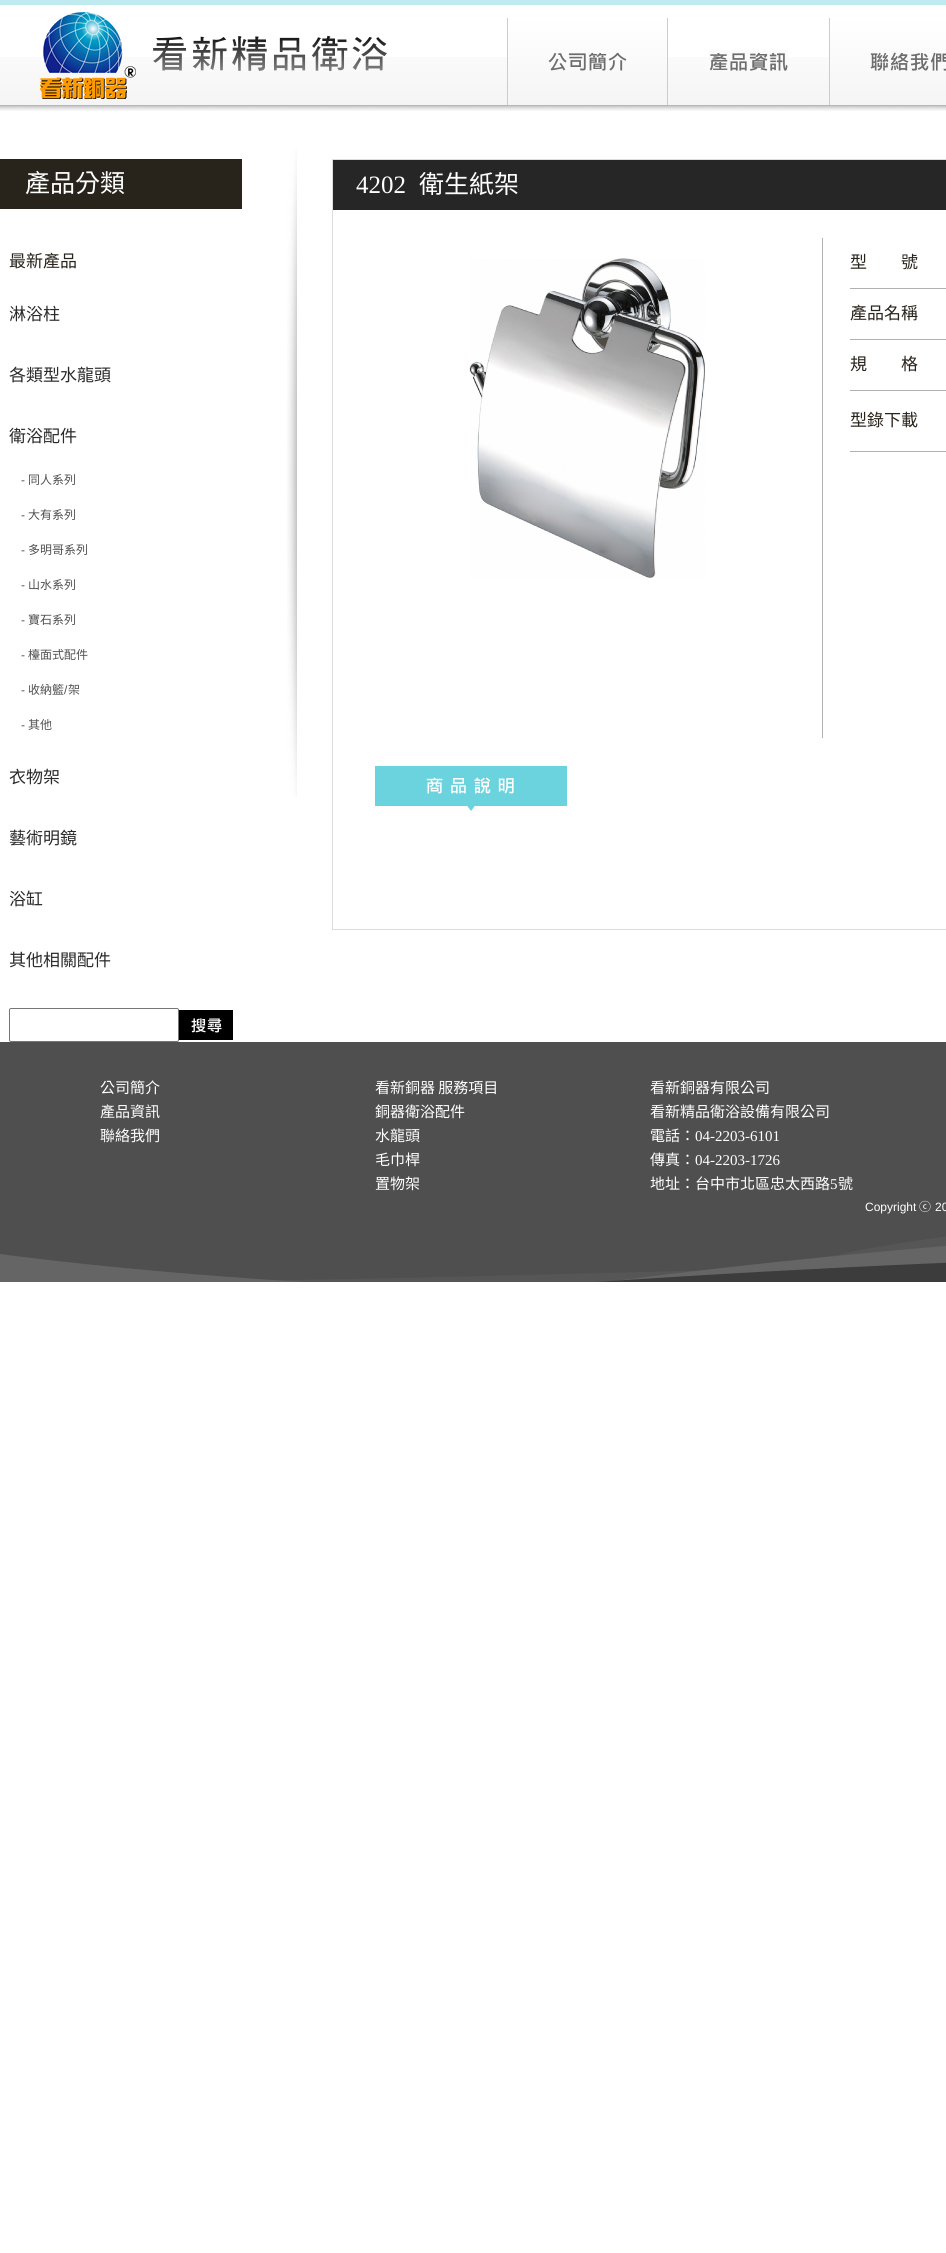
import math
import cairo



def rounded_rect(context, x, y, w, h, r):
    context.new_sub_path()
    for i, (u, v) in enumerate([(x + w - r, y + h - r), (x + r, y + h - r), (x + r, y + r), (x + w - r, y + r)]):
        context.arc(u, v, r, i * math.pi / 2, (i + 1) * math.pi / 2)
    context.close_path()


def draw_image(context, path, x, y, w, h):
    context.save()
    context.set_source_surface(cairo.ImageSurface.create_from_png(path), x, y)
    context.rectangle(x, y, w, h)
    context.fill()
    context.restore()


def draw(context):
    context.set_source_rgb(1, 1, 1)
    context.paint()
    context.set_source_rgb(191 / 255, 235 / 255, 240 / 255)
    context.rectangle(0, 0, 946, 5)
    context.fill()
    draw_image(context, "images/1.png", 0, 57, 946, 54)
    draw_image(context, "images/2.png", 40, 12, 96, 87)
    draw_image(context, "images/3.png", 153, 35, 234, 36)
    draw_image(context, "images/4.png", 507, 18, 161, 87)
    draw_image(context, "images/5.png", 709, 50, 79, 21)
    draw_image(context, "images/6.png", 829, 18, 117, 87)
    context.set_source_rgb(40 / 255, 35 / 255, 27 / 255)
    context.rectangle(0, 159, 242, 50)
    context.fill()
    rounded_rect(context, 9.5, 1008.5, 169, 33, 1.5)
    context.set_source_rgb(118 / 255, 118 / 255, 118 / 255)
    context.set_line_width(1)
    context.stroke()
    draw_image(context, "images/7.png", 179, 1010, 54, 30)
    draw_image(context, "images/8.png", 287, 150, 10, 647)
    context.set_source_rgb(221 / 255, 221 / 255, 221 / 255)
    context.rectangle(332, 159, 614, 771)
    context.fill()
    context.set_source_rgb(1, 1, 1)
    context.rectangle(333, 210, 613, 719)
    context.fill()
    context.set_source_rgb(38 / 255, 38 / 255, 38 / 255)
    context.rectangle(333, 160, 613, 50)
    context.fill()
    draw_image(context, "images/9.png", 469, 258, 236, 321)
    context.set_source_rgb(177 / 255, 177 / 255, 177 / 255)
    context.rectangle(822, 238, 1, 500)
    context.fill()
    context.rectangle(850, 288, 96, 1)
    context.fill()
    context.rectangle(850, 339, 96, 1)
    context.fill()
    context.rectangle(850, 390, 96, 1)
    context.fill()
    context.rectangle(850, 451, 96, 1)
    context.fill()
    draw_image(context, "images/10.png", 375, 766, 192, 45)
    draw_image(context, "images/11.png", 0, 1042, 946, 240)
    context.select_font_face("Noto Sans CJK TC")
    context.set_font_size(25)
    context.set_source_rgb(1, 1, 1)
    context.move_to(25, 192)
    context.show_text("產品分類")
    context.set_font_size(17)
    context.set_source_rgb(40 / 255, 35 / 255, 27 / 255)
    context.move_to(9, 267)
    context.show_text("最新產品")
    context.set_source_rgb(42 / 255, 42 / 255, 42 / 255)
    context.move_to(9, 320)
    context.show_text("淋浴柱")
    context.move_to(9, 381)
    context.show_text("各類型水龍頭")
    context.move_to(9, 442)
    context.show_text("衛浴配件")
    context.select_font_face("Liberation Sans")
    context.set_font_size(12)
    context.set_source_rgb(80 / 255, 80 / 255, 80 / 255)
    context.move_to(21, 484)
    context.show_text("-")
    context.select_font_face("Noto Sans CJK TC")
    context.move_to(28, 484)
    context.show_text("同人系列")
    context.select_font_face("Liberation Sans")
    context.move_to(21, 519)
    context.show_text("-")
    context.select_font_face("Noto Sans CJK TC")
    context.move_to(28, 519)
    context.show_text("大有系列")
    context.select_font_face("Liberation Sans")
    context.move_to(21, 554)
    context.show_text("-")
    context.select_font_face("Noto Sans CJK TC")
    context.move_to(28, 554)
    context.show_text("多明哥系列")
    context.select_font_face("Liberation Sans")
    context.move_to(21, 589)
    context.show_text("-")
    context.select_font_face("Noto Sans CJK TC")
    context.move_to(28, 589)
    context.show_text("山水系列")
    context.select_font_face("Liberation Sans")
    context.move_to(21, 624)
    context.show_text("-")
    context.select_font_face("Noto Sans CJK TC")
    context.move_to(28, 624)
    context.show_text("寶石系列")
    context.select_font_face("Liberation Sans")
    context.move_to(21, 659)
    context.show_text("-")
    context.select_font_face("Noto Sans CJK TC")
    context.move_to(28, 659)
    context.show_text("檯面式配件")
    context.select_font_face("Liberation Sans")
    context.move_to(21, 694)
    context.show_text("-")
    context.select_font_face("Noto Sans CJK TC")
    context.move_to(28, 694)
    context.show_text("收納籃")
    context.select_font_face("Liberation Sans")
    context.move_to(64, 694)
    context.show_text("/")
    context.select_font_face("Noto Sans CJK TC")
    context.move_to(68, 694)
    context.show_text("架")
    context.select_font_face("Liberation Sans")
    context.move_to(21, 729)
    context.show_text("-")
    context.select_font_face("Noto Sans CJK TC")
    context.move_to(28, 729)
    context.show_text("其他")
    context.set_font_size(17)
    context.set_source_rgb(42 / 255, 42 / 255, 42 / 255)
    context.move_to(9, 783)
    context.show_text("衣物架")
    context.move_to(9, 844)
    context.show_text("藝術明鏡")
    context.move_to(9, 905)
    context.show_text("浴缸")
    context.move_to(9, 966)
    context.show_text("其他相關配件")
    context.select_font_face("Liberation Serif")
    context.set_font_size(25)
    context.set_source_rgb(1, 1, 1)
    context.move_to(356, 193)
    context.show_text("4202")
    context.select_font_face("Noto Sans CJK TC")
    context.move_to(419, 193)
    context.show_text("衛生紙架")
    context.set_font_size(17)
    context.set_source_rgb(40 / 255, 35 / 255, 27 / 255)
    context.move_to(850, 268)
    context.show_text("型　　號")
    context.move_to(850, 319)
    context.show_text("產品名稱")
    context.move_to(850, 370)
    context.show_text("規　　格")
    context.move_to(850, 426)
    context.show_text("型錄下載")
    context.set_font_size(15)
    context.set_source_rgb(1, 1, 1)
    context.move_to(100, 1093)
    context.show_text("公司簡介")
    context.move_to(100, 1117)
    context.show_text("產品資訊")
    context.move_to(100, 1141)
    context.show_text("聯絡我們")
    context.move_to(375, 1093)
    context.show_text("看新銅器 服務項目")
    context.move_to(375, 1117)
    context.show_text("銅器衛浴配件")
    context.move_to(375, 1141)
    context.show_text("水龍頭")
    context.move_to(375, 1165)
    context.show_text("毛巾桿")
    context.move_to(375, 1189)
    context.show_text("置物架")
    context.move_to(650, 1093)
    context.show_text("看新銅器有限公司")
    context.move_to(650, 1117)
    context.show_text("看新精品衛浴設備有限公司")
    context.move_to(650, 1141)
    context.show_text("電話：")
    context.select_font_face("Liberation Serif")
    context.move_to(695, 1141)
    context.show_text("04-2203-6101")
    context.select_font_face("Noto Sans CJK TC")
    context.move_to(650, 1165)
    context.show_text("傳真：")
    context.select_font_face("Liberation Serif")
    context.move_to(695, 1165)
    context.show_text("04-2203-1726")
    context.select_font_face("Noto Sans CJK TC")
    context.move_to(650, 1189)
    context.show_text("地址：台中市北區忠太西路")
    context.select_font_face("Liberation Serif")
    context.move_to(830, 1189)
    context.show_text("5")
    context.select_font_face("Noto Sans CJK TC")
    context.move_to(838, 1189)
    context.show_text("號")
    context.select_font_face("Liberation Sans")
    context.set_font_size(12)
    context.move_to(865, 1211)
    context.show_text("Copyright")
    context.select_font_face("Noto Sans CJK TC")
    context.move_to(919, 1211)
    context.show_text("ⓒ")
    context.select_font_face("Liberation Sans")
    context.move_to(935, 1211)
    context.show_text("20")


surface = cairo.ImageSurface(cairo.Format.RGB24, 946, 2253)
context = cairo.Context(surface)
options = cairo.FontOptions()
options.set_hint_metrics(cairo.HintMetrics.OFF)
options.set_hint_style(cairo.HintStyle.NONE)
context.set_font_options(options)
context.set_miter_limit(4)
draw(context)
surface.write_to_png("out.png")
